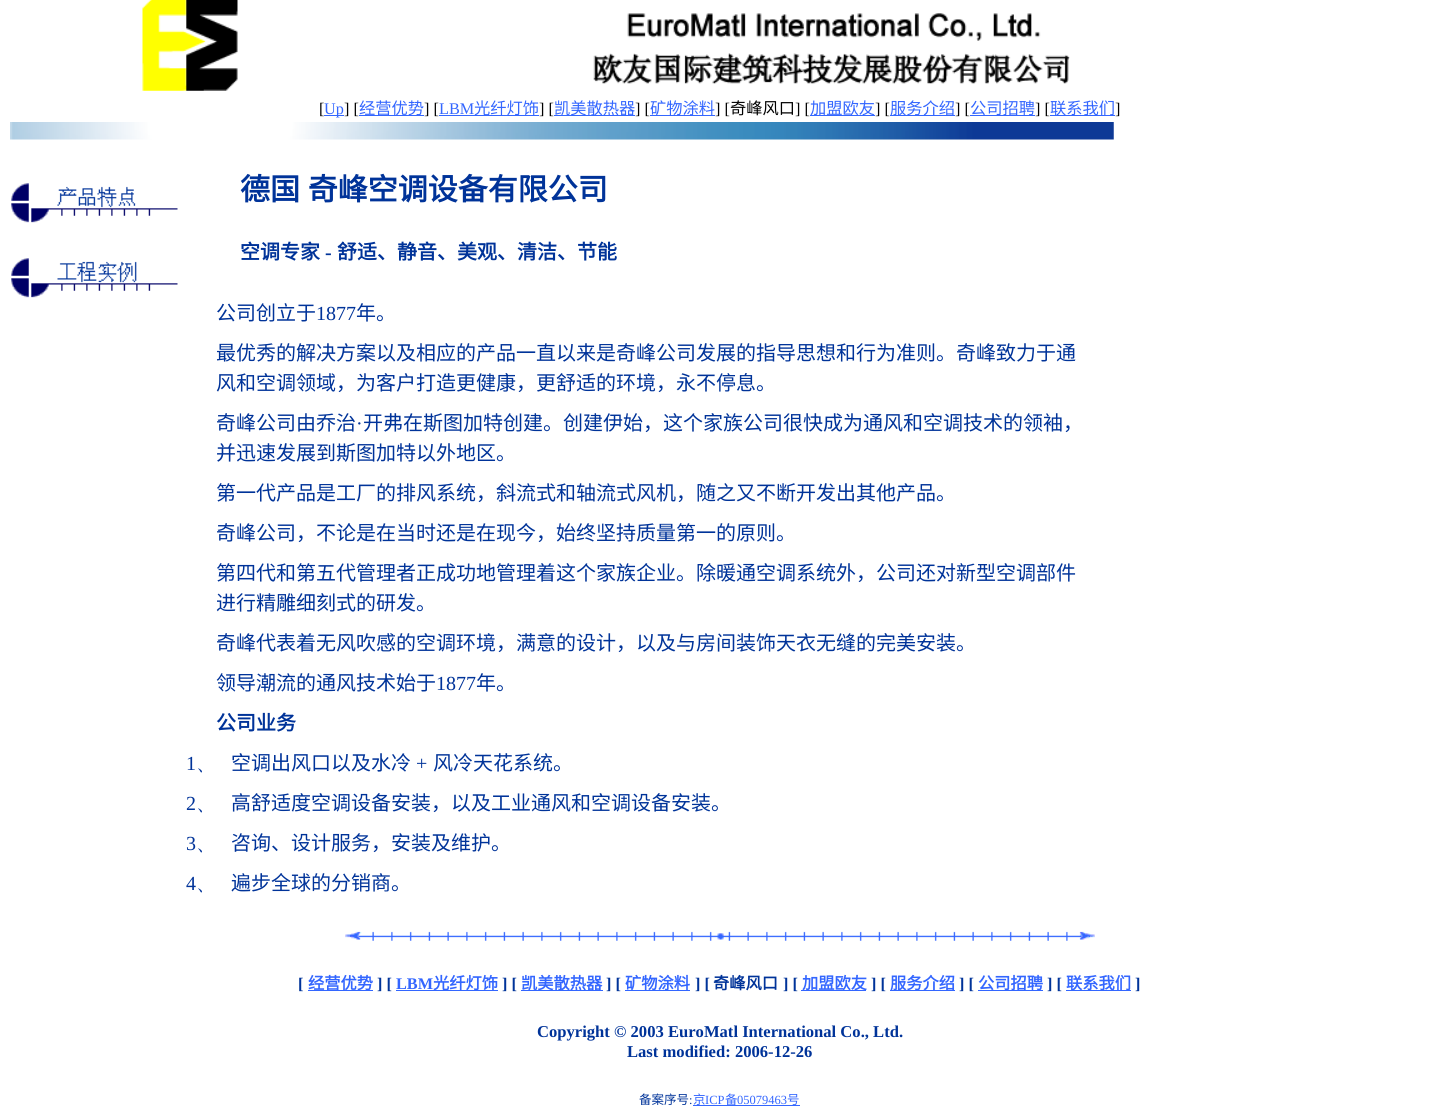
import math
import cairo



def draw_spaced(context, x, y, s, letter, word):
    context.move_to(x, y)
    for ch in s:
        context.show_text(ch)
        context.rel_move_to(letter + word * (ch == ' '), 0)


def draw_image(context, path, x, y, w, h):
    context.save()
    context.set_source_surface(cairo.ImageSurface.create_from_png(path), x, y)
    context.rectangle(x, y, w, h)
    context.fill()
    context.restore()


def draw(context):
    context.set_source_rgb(1, 1, 1)
    context.paint()
    draw_image(context, "images/1.png", 142, 0, 96, 91)
    draw_image(context, "images/2.png", 593, 13, 477, 71)
    context.set_source_rgb(51 / 255, 102 / 255, 1)
    context.rectangle(324, 115, 20, 1)
    context.fill()
    context.rectangle(359, 115, 65, 1)
    context.fill()
    context.rectangle(439, 115, 100, 1)
    context.fill()
    context.rectangle(554, 115, 81, 1)
    context.fill()
    context.rectangle(650, 115, 65, 1)
    context.fill()
    context.rectangle(810, 115, 65, 1)
    context.fill()
    context.rectangle(890, 115, 65, 1)
    context.fill()
    context.rectangle(970, 115, 65, 1)
    context.fill()
    context.rectangle(1050, 115, 65, 1)
    context.fill()
    draw_image(context, "images/3.png", 10, 122, 1104, 18)
    draw_image(context, "images/4.png", 11, 183, 167, 40)
    draw_image(context, "images/5.png", 11, 258, 167, 40)
    draw_image(context, "images/6.png", 345, 931, 750, 10)
    context.rectangle(308, 990, 65, 1)
    context.fill()
    context.rectangle(396, 990, 102, 1)
    context.fill()
    context.rectangle(521, 990, 82, 1)
    context.fill()
    context.rectangle(625, 990, 65, 1)
    context.fill()
    context.rectangle(801, 990, 65, 1)
    context.fill()
    context.rectangle(890, 990, 65, 1)
    context.fill()
    context.rectangle(978, 990, 65, 1)
    context.fill()
    context.rectangle(1066, 990, 65, 1)
    context.fill()
    context.rectangle(693, 1105, 107, 1)
    context.fill()
    context.select_font_face("Liberation Serif")
    context.set_font_size(16.25)
    context.set_source_rgb(0, 0, 0)
    context.move_to(319, 114)
    context.show_text("[")
    context.set_source_rgb(51 / 255, 102 / 255, 1)
    context.move_to(324, 114)
    context.show_text("Up")
    context.set_source_rgb(0, 0, 0)
    context.move_to(344, 114)
    context.show_text("] [")
    context.select_font_face("Noto Sans CJK SC")
    context.set_source_rgb(51 / 255, 102 / 255, 1)
    context.move_to(359, 114)
    context.show_text("经营优势")
    context.select_font_face("Liberation Serif")
    context.set_source_rgb(0, 0, 0)
    context.move_to(424, 114)
    context.show_text("] [")
    context.set_source_rgb(51 / 255, 102 / 255, 1)
    context.move_to(439, 114)
    context.show_text("LBM")
    context.select_font_face("Noto Sans CJK SC")
    context.move_to(474, 114)
    context.show_text("光纤灯饰")
    context.select_font_face("Liberation Serif")
    context.set_source_rgb(0, 0, 0)
    context.move_to(539, 114)
    context.show_text("] [")
    context.select_font_face("Noto Sans CJK SC")
    context.set_source_rgb(51 / 255, 102 / 255, 1)
    context.move_to(554, 114)
    context.show_text("凯美散热器")
    context.select_font_face("Liberation Serif")
    context.set_source_rgb(0, 0, 0)
    context.move_to(635, 114)
    context.show_text("] [")
    context.select_font_face("Noto Sans CJK SC")
    context.set_source_rgb(51 / 255, 102 / 255, 1)
    context.move_to(650, 114)
    context.show_text("矿物涂料")
    context.select_font_face("Liberation Serif")
    context.set_source_rgb(0, 0, 0)
    context.move_to(715, 114)
    context.show_text("] [")
    context.select_font_face("Noto Sans CJK SC")
    context.move_to(730, 114)
    context.show_text("奇峰风口")
    context.select_font_face("Liberation Serif")
    context.move_to(795, 114)
    context.show_text("] [")
    context.select_font_face("Noto Sans CJK SC")
    context.set_source_rgb(51 / 255, 102 / 255, 1)
    context.move_to(810, 114)
    context.show_text("加盟欧友")
    context.select_font_face("Liberation Serif")
    context.set_source_rgb(0, 0, 0)
    context.move_to(875, 114)
    context.show_text("] [")
    context.select_font_face("Noto Sans CJK SC")
    context.set_source_rgb(51 / 255, 102 / 255, 1)
    context.move_to(890, 114)
    context.show_text("服务介绍")
    context.select_font_face("Liberation Serif")
    context.set_source_rgb(0, 0, 0)
    context.move_to(955, 114)
    context.show_text("] [")
    context.select_font_face("Noto Sans CJK SC")
    context.set_source_rgb(51 / 255, 102 / 255, 1)
    context.move_to(970, 114)
    context.show_text("公司招聘")
    context.select_font_face("Liberation Serif")
    context.set_source_rgb(0, 0, 0)
    context.move_to(1035, 114)
    context.show_text("] [")
    context.select_font_face("Noto Sans CJK SC")
    context.set_source_rgb(51 / 255, 102 / 255, 1)
    context.move_to(1050, 114)
    context.show_text("联系我们")
    context.select_font_face("Liberation Serif")
    context.set_source_rgb(0, 0, 0)
    context.move_to(1115, 114)
    context.show_text("]")
    context.select_font_face("Noto Sans CJK SC", cairo.FontSlant.NORMAL, cairo.FontWeight.BOLD)
    context.set_font_size(30)
    context.set_source_rgb(0, 51 / 255, 153 / 255)
    draw_spaced(context, 240, 200, "德国 奇峰空调设备有限公司", 0, 1)
    context.set_font_size(20)
    context.move_to(240, 259)
    context.show_text("空调专家")
    context.select_font_face("Liberation Serif", cairo.FontSlant.NORMAL, cairo.FontWeight.BOLD)
    context.move_to(325, 259)
    context.show_text("-")
    context.select_font_face("Noto Sans CJK SC", cairo.FontSlant.NORMAL, cairo.FontWeight.BOLD)
    context.move_to(337, 259)
    context.show_text("舒适、静音、美观、清洁、节能")
    context.select_font_face("Noto Sans CJK SC")
    context.move_to(216, 320)
    context.show_text("公司创立于")
    context.select_font_face("Liberation Serif")
    context.move_to(316, 320)
    context.show_text("1877")
    context.select_font_face("Noto Sans CJK SC")
    context.move_to(356, 320)
    context.show_text("年。")
    context.move_to(216, 360)
    context.show_text("最优秀的解决方案以及相应的产品一直以来是奇峰公司发展的指导思想和行为准则。奇峰致力于通")
    context.move_to(216, 390)
    context.show_text("风和空调领域，为客户打造更健康，更舒适的环境，永不停息。")
    context.move_to(216, 430)
    context.show_text("奇峰公司由乔治")
    context.select_font_face("Liberation Serif")
    context.move_to(356, 430)
    context.show_text("·")
    context.select_font_face("Noto Sans CJK SC")
    context.move_to(363, 430)
    context.show_text("开弗在斯图加特创建。创建伊始，这个家族公司很快成为通风和空调技术的领袖，")
    context.move_to(216, 460)
    context.show_text("并迅速发展到斯图加特以外地区。")
    context.move_to(216, 500)
    context.show_text("第一代产品是工厂的排风系统，斜流式和轴流式风机，随之又不断开发出其他产品。")
    context.move_to(216, 540)
    context.show_text("奇峰公司，不论是在当时还是在现今，始终坚持质量第一的原则。")
    context.move_to(216, 580)
    context.show_text("第四代和第五代管理者正成功地管理着这个家族企业。除暖通空调系统外，公司还对新型空调部件")
    context.move_to(216, 610)
    context.show_text("进行精雕细刻式的研发。")
    context.move_to(216, 650)
    context.show_text("奇峰代表着无风吹感的空调环境，满意的设计，以及与房间装饰天衣无缝的完美安装。")
    context.move_to(216, 690)
    context.show_text("领导潮流的通风技术始于")
    context.select_font_face("Liberation Serif")
    context.move_to(436, 690)
    context.show_text("1877")
    context.select_font_face("Noto Sans CJK SC")
    context.move_to(476, 690)
    context.show_text("年。")
    context.select_font_face("Noto Sans CJK SC", cairo.FontSlant.NORMAL, cairo.FontWeight.BOLD)
    context.move_to(216, 730)
    context.show_text("公司业务")
    context.select_font_face("Liberation Serif")
    context.move_to(186, 770)
    context.show_text("1")
    context.select_font_face("Noto Sans CJK SC")
    context.move_to(231, 770)
    context.show_text("空调出风口以及水冷")
    context.select_font_face("Liberation Serif")
    context.move_to(416, 770)
    context.show_text("+")
    context.select_font_face("Noto Sans CJK SC")
    context.move_to(433, 770)
    context.show_text("风冷天花系统。")
    context.select_font_face("WenQuanYi Zen Hei Medium")
    context.move_to(196, 770)
    context.show_text("、")
    context.select_font_face("Liberation Serif")
    context.move_to(186, 810)
    context.show_text("2")
    context.select_font_face("Noto Sans CJK SC")
    context.move_to(231, 810)
    context.show_text("高舒适度空调设备安装，以及工业通风和空调设备安装。")
    context.select_font_face("WenQuanYi Zen Hei Medium")
    context.move_to(196, 810)
    context.show_text("、")
    context.select_font_face("Liberation Serif")
    context.move_to(186, 850)
    context.show_text("3")
    context.select_font_face("WenQuanYi Zen Hei Medium")
    context.move_to(196, 850)
    context.show_text("、")
    context.select_font_face("Noto Sans CJK SC")
    context.move_to(231, 850)
    context.show_text("咨询、设计服务，安装及维护。")
    context.select_font_face("Liberation Serif")
    context.move_to(186, 890)
    context.show_text("4")
    context.select_font_face("Noto Sans CJK SC")
    context.move_to(231, 890)
    context.show_text("遍步全球的分销商。")
    context.select_font_face("WenQuanYi Zen Hei Medium")
    context.move_to(196, 890)
    context.show_text("、")
    context.select_font_face("Liberation Serif", cairo.FontSlant.NORMAL, cairo.FontWeight.BOLD)
    context.set_font_size(16.25)
    context.move_to(298, 989)
    context.show_text("[")
    context.select_font_face("Noto Sans CJK SC", cairo.FontSlant.NORMAL, cairo.FontWeight.BOLD)
    context.set_source_rgb(51 / 255, 102 / 255, 1)
    context.move_to(308, 989)
    context.show_text("经营优势")
    context.select_font_face("Liberation Serif", cairo.FontSlant.NORMAL, cairo.FontWeight.BOLD)
    context.set_source_rgb(0, 51 / 255, 153 / 255)
    context.move_to(377, 989)
    context.show_text("] [")
    context.set_source_rgb(51 / 255, 102 / 255, 1)
    context.move_to(396, 989)
    context.show_text("LBM")
    context.select_font_face("Noto Sans CJK SC", cairo.FontSlant.NORMAL, cairo.FontWeight.BOLD)
    context.move_to(433, 989)
    context.show_text("光纤灯饰")
    context.select_font_face("Liberation Serif", cairo.FontSlant.NORMAL, cairo.FontWeight.BOLD)
    context.set_source_rgb(0, 51 / 255, 153 / 255)
    context.move_to(502, 989)
    context.show_text("] [")
    context.select_font_face("Noto Sans CJK SC", cairo.FontSlant.NORMAL, cairo.FontWeight.BOLD)
    context.set_source_rgb(51 / 255, 102 / 255, 1)
    context.move_to(521, 989)
    context.show_text("凯美散热器")
    context.select_font_face("Liberation Serif", cairo.FontSlant.NORMAL, cairo.FontWeight.BOLD)
    context.set_source_rgb(0, 51 / 255, 153 / 255)
    context.move_to(606, 989)
    context.show_text("] [")
    context.select_font_face("Noto Sans CJK SC", cairo.FontSlant.NORMAL, cairo.FontWeight.BOLD)
    context.set_source_rgb(51 / 255, 102 / 255, 1)
    context.move_to(625, 989)
    context.show_text("矿物涂料")
    context.select_font_face("Liberation Serif", cairo.FontSlant.NORMAL, cairo.FontWeight.BOLD)
    context.set_source_rgb(0, 51 / 255, 153 / 255)
    context.move_to(695, 989)
    context.show_text("] [")
    context.select_font_face("Noto Sans CJK SC", cairo.FontSlant.NORMAL, cairo.FontWeight.BOLD)
    context.move_to(713, 989)
    context.show_text("奇峰风口")
    context.select_font_face("Liberation Serif", cairo.FontSlant.NORMAL, cairo.FontWeight.BOLD)
    context.move_to(783, 989)
    context.show_text("] [")
    context.select_font_face("Noto Sans CJK SC", cairo.FontSlant.NORMAL, cairo.FontWeight.BOLD)
    context.set_source_rgb(51 / 255, 102 / 255, 1)
    context.move_to(802, 989)
    context.show_text("加盟欧友")
    context.select_font_face("Liberation Serif", cairo.FontSlant.NORMAL, cairo.FontWeight.BOLD)
    context.set_source_rgb(0, 51 / 255, 153 / 255)
    context.move_to(871, 989)
    context.show_text("] [")
    context.select_font_face("Noto Sans CJK SC", cairo.FontSlant.NORMAL, cairo.FontWeight.BOLD)
    context.set_source_rgb(51 / 255, 102 / 255, 1)
    context.move_to(890, 989)
    context.show_text("服务介绍")
    context.select_font_face("Liberation Serif", cairo.FontSlant.NORMAL, cairo.FontWeight.BOLD)
    context.set_source_rgb(0, 51 / 255, 153 / 255)
    context.move_to(959, 989)
    context.show_text("] [")
    context.select_font_face("Noto Sans CJK SC", cairo.FontSlant.NORMAL, cairo.FontWeight.BOLD)
    context.set_source_rgb(51 / 255, 102 / 255, 1)
    context.move_to(978, 989)
    context.show_text("公司招聘")
    context.select_font_face("Liberation Serif", cairo.FontSlant.NORMAL, cairo.FontWeight.BOLD)
    context.set_source_rgb(0, 51 / 255, 153 / 255)
    context.move_to(1047, 989)
    context.show_text("] [")
    context.select_font_face("Noto Sans CJK SC", cairo.FontSlant.NORMAL, cairo.FontWeight.BOLD)
    context.set_source_rgb(51 / 255, 102 / 255, 1)
    context.move_to(1066, 989)
    context.show_text("联系我们")
    context.select_font_face("Liberation Serif", cairo.FontSlant.NORMAL, cairo.FontWeight.BOLD)
    context.set_source_rgb(0, 51 / 255, 153 / 255)
    context.move_to(1135, 989)
    context.show_text("]")
    context.set_font_size(16.6)
    context.move_to(537, 1037)
    context.show_text("Copyright © 2003 EuroMatl International Co., Ltd.")
    context.move_to(627, 1057)
    context.show_text("Last modified: 2006-12-26")
    context.select_font_face("Noto Sans CJK SC")
    context.set_font_size(12.5)
    context.move_to(639, 1104)
    context.show_text("备案序号")
    context.select_font_face("Liberation Serif")
    context.move_to(689, 1104)
    context.show_text(":")
    context.select_font_face("Noto Sans CJK SC")
    context.set_source_rgb(51 / 255, 102 / 255, 1)
    context.move_to(693, 1104)
    context.show_text("京")
    context.select_font_face("Liberation Serif")
    context.move_to(705, 1104)
    context.show_text("ICP")
    context.select_font_face("Noto Sans CJK SC")
    context.move_to(725, 1104)
    context.show_text("备")
    context.select_font_face("Liberation Serif")
    context.move_to(737, 1104)
    context.show_text("05079463")
    context.select_font_face("Noto Sans CJK SC")
    context.move_to(787, 1104)
    context.show_text("号")


surface = cairo.ImageSurface(cairo.Format.RGB24, 1438, 1117)
context = cairo.Context(surface)
options = cairo.FontOptions()
options.set_hint_metrics(cairo.HintMetrics.OFF)
options.set_hint_style(cairo.HintStyle.NONE)
context.set_font_options(options)
context.set_miter_limit(4)
draw(context)
surface.write_to_png("out.png")
